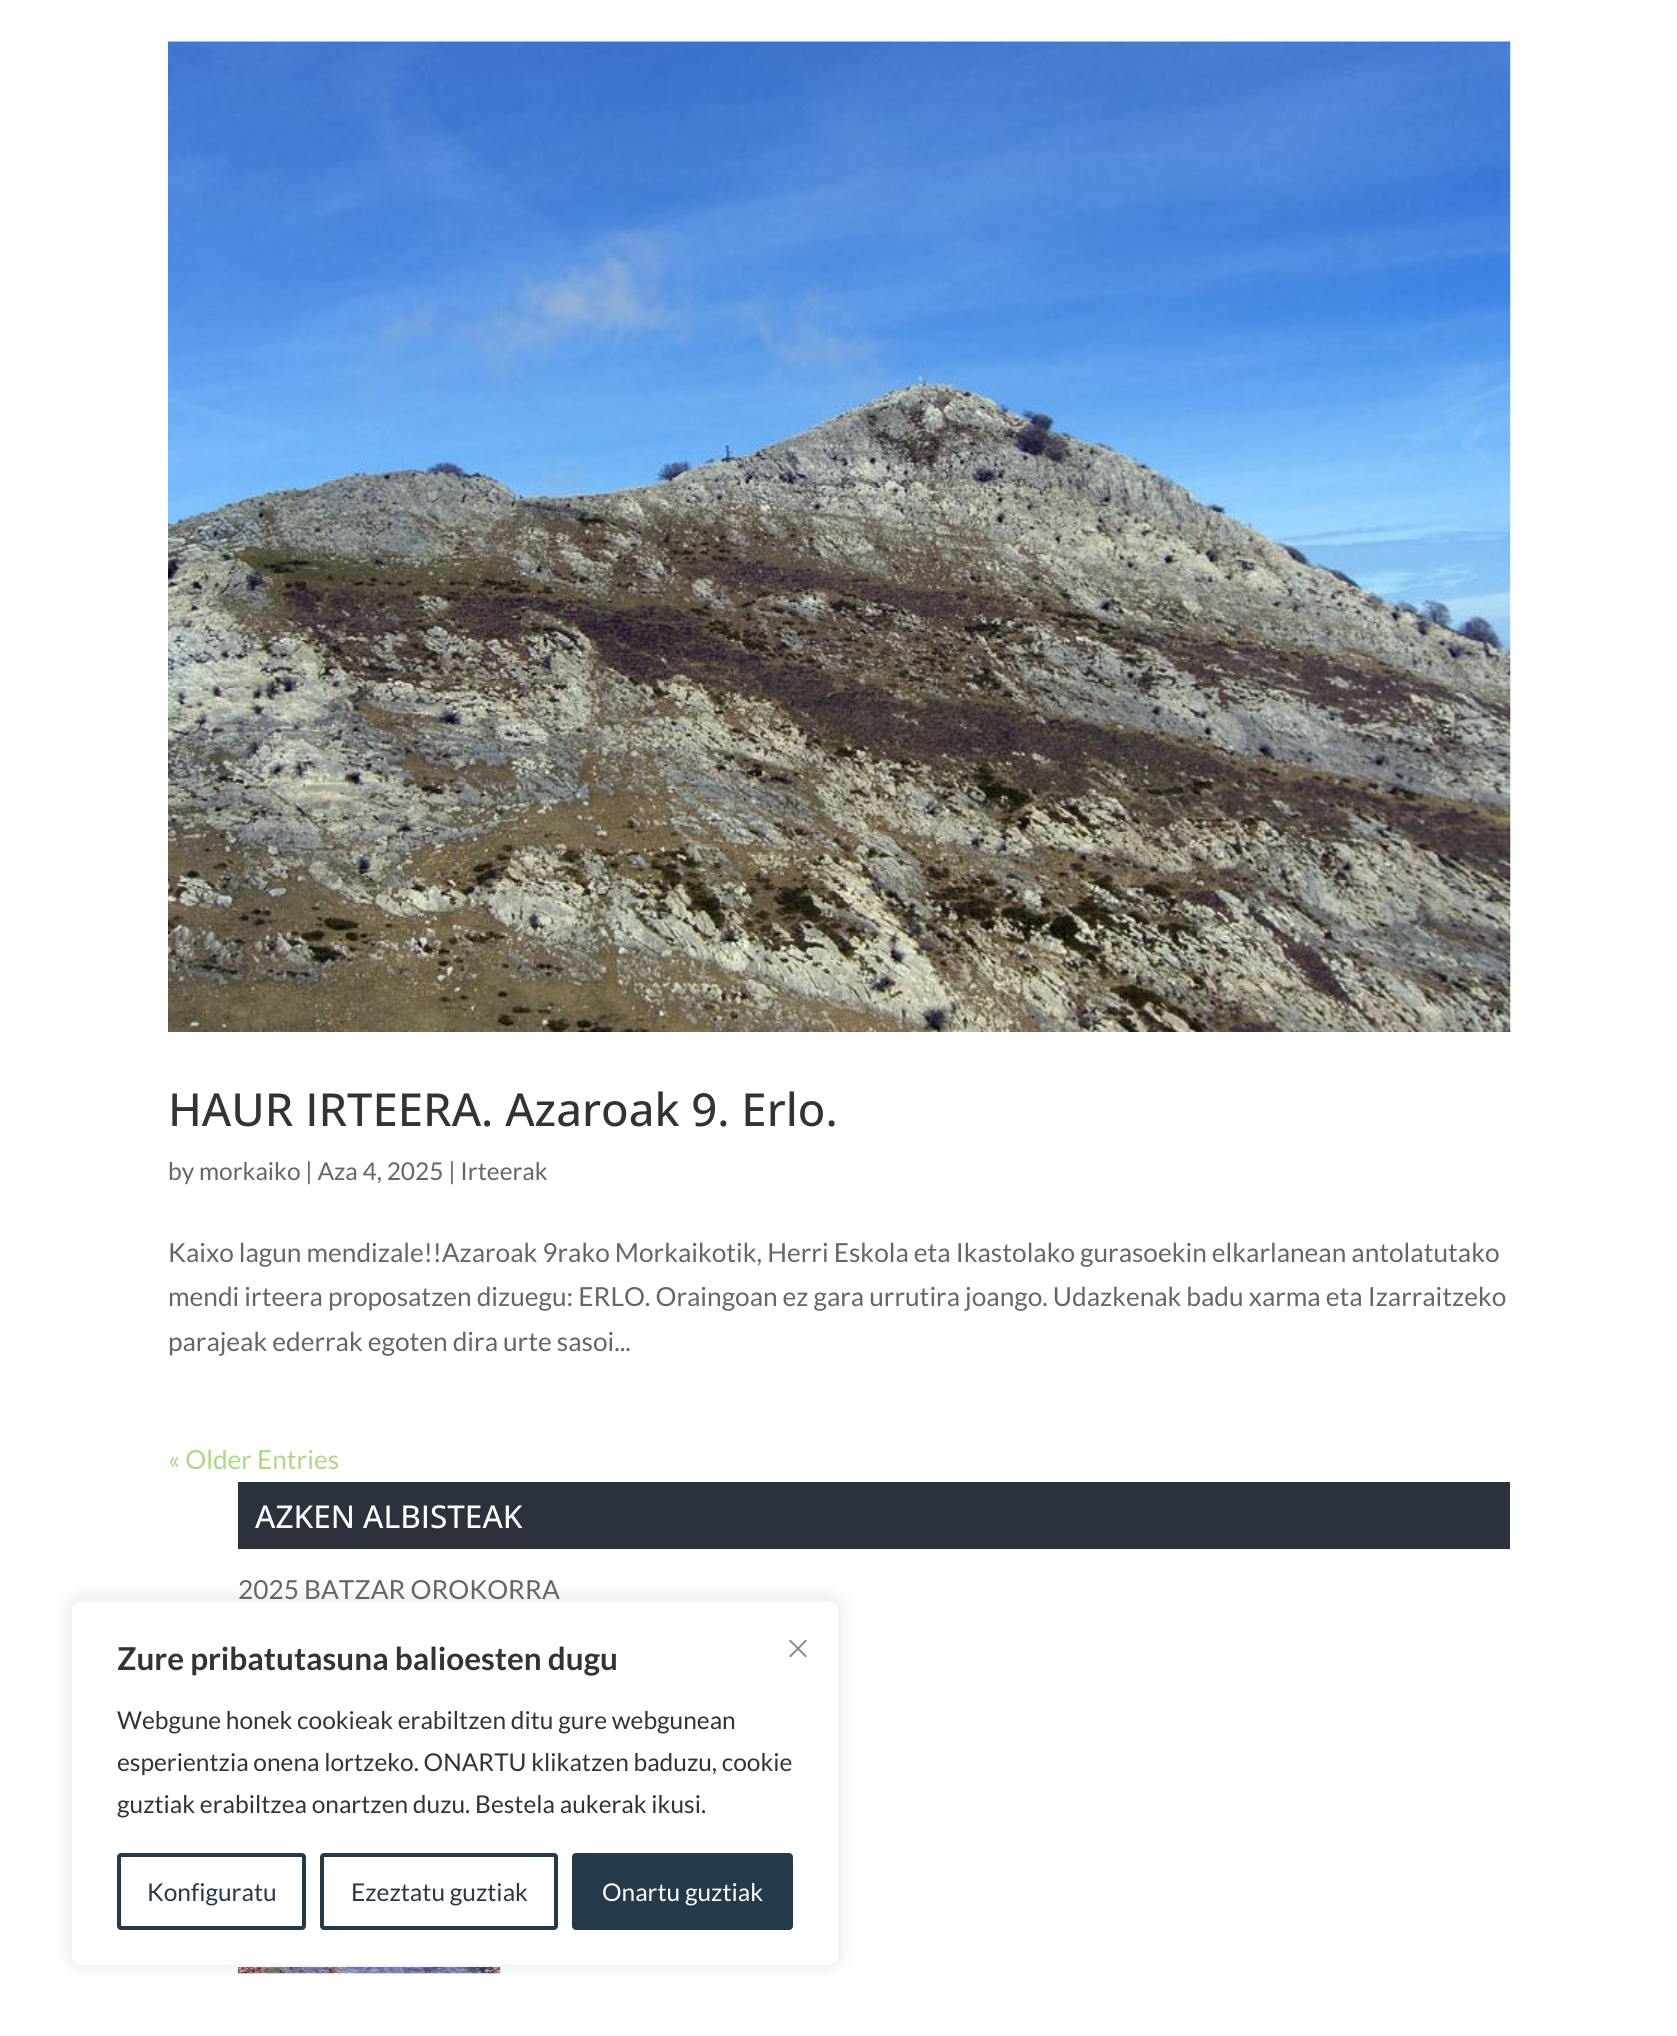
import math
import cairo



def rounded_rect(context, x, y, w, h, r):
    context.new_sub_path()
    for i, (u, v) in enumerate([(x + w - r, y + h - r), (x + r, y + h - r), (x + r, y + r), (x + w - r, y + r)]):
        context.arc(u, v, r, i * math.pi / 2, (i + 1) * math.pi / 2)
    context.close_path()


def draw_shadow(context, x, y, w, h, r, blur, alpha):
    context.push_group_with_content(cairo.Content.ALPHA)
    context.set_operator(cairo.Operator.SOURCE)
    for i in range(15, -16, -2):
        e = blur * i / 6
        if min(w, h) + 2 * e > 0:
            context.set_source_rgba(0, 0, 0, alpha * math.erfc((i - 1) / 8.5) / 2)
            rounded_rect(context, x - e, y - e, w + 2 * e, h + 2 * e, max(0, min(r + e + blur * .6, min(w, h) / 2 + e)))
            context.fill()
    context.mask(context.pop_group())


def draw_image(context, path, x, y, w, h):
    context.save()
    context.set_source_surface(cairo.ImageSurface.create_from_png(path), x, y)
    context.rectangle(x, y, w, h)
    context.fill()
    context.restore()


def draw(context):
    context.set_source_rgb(1, 1, 1)
    context.paint()
    draw_image(context, "images/1.png", 168, 41, 1343, 991)
    context.set_source_rgb(43 / 255, 50 / 255, 60 / 255)
    context.rectangle(238, 1482, 1272, 67)
    context.fill()
    draw_image(context, "images/2.png", 238, 1967, 263, 7)
    context.set_source_rgb(172 / 255, 171 / 255, 171 / 255)
    draw_shadow(context, 70, 1598, 770, 367, 11, 9, 0.3)
    context.set_source_rgb(1, 1, 1)
    rounded_rect(context, 71, 1601, 768, 365, 10)
    context.fill_preserve()
    context.set_source_rgb(244 / 255, 244 / 255, 244 / 255)
    context.stroke()
    rounded_rect(context, 119, 1855, 185, 73, 2)
    context.set_source_rgb(36 / 255, 57 / 255, 74 / 255)
    context.set_line_width(4)
    context.stroke()
    rounded_rect(context, 322, 1855, 234, 73, 2)
    context.stroke()
    rounded_rect(context, 574, 1855, 217, 73, 2)
    context.fill_preserve()
    context.stroke()
    draw_image(context, "images/3.png", 789, 1640, 18, 17)
    context.select_font_face("Open Sans Medium")
    context.set_font_size(45.5)
    context.set_source_rgb(51 / 255, 51 / 255, 51 / 255)
    context.move_to(168, 1126)
    context.show_text("HAUR IRTEERA. Azaroak 9. Erlo.")
    context.select_font_face("Lato")
    context.set_font_size(24.5)
    context.set_source_rgb(102 / 255, 102 / 255, 102 / 255)
    context.move_to(168, 1180)
    context.show_text("by morkaiko | Aza 4, 2025 | Irteerak")
    context.set_font_size(26.25)
    context.move_to(168, 1262)
    context.show_text("Kaixo lagun mendizale!!Azaroak 9rako Morkaikotik, Herri Eskola eta Ikastolako gurasoekin elkarlanean antolatutako")
    context.move_to(168, 1306)
    context.show_text("mendi irteera proposatzen dizuegu: ERLO. Oraingoan ez gara urrutira joango. Udazkenak badu xarma eta Izarraitzeko")
    context.move_to(168, 1351)
    context.show_text("parajeak ederrak egoten dira urte sasoi...")
    context.set_source_rgb(174 / 255, 216 / 255, 132 / 255)
    context.move_to(168, 1469)
    context.show_text("« Older Entries")
    context.select_font_face("Open Sans Medium")
    context.set_font_size(31.5)
    context.set_source_rgb(1, 1, 1)
    context.move_to(255, 1528)
    context.show_text("AZKEN ALBISTEAK")
    context.select_font_face("Lato")
    context.set_font_size(26.25)
    context.set_source_rgb(102 / 255, 102 / 255, 102 / 255)
    context.move_to(238, 1599)
    context.show_text("2025 BATZAR OROKORRA")
    context.select_font_face("Lato", cairo.FontSlant.NORMAL, cairo.FontWeight.BOLD)
    context.set_font_size(31.5)
    context.set_source_rgb(51 / 255, 51 / 255, 51 / 255)
    context.move_to(117, 1670)
    context.show_text("Zure pribatutasuna balioesten dugu")
    context.select_font_face("Lato")
    context.set_font_size(24.5)
    context.move_to(117, 1729)
    context.show_text("Webgune honek cookieak erabiltzen ditu gure webgunean")
    context.move_to(117, 1771)
    context.show_text("esperientzia onena lortzeko. ONARTU klikatzen baduzu, cookie")
    context.move_to(117, 1813)
    context.show_text("guztiak erabiltzea onartzen duzu. Bestela aukerak ikusi.")
    context.set_source_rgb(36 / 255, 57 / 255, 74 / 255)
    context.move_to(147, 1901)
    context.show_text("Konfiguratu")
    context.move_to(351, 1901)
    context.show_text("Ezeztatu guztiak")
    context.set_source_rgb(1, 1, 1)
    context.move_to(602, 1901)
    context.show_text("Onartu guztiak")


surface = cairo.ImageSurface(cairo.Format.RGB24, 1677, 2036)
context = cairo.Context(surface)
options = cairo.FontOptions()
options.set_hint_metrics(cairo.HintMetrics.OFF)
options.set_hint_style(cairo.HintStyle.NONE)
context.set_font_options(options)
context.set_miter_limit(4)
draw(context)
surface.write_to_png("out.png")
